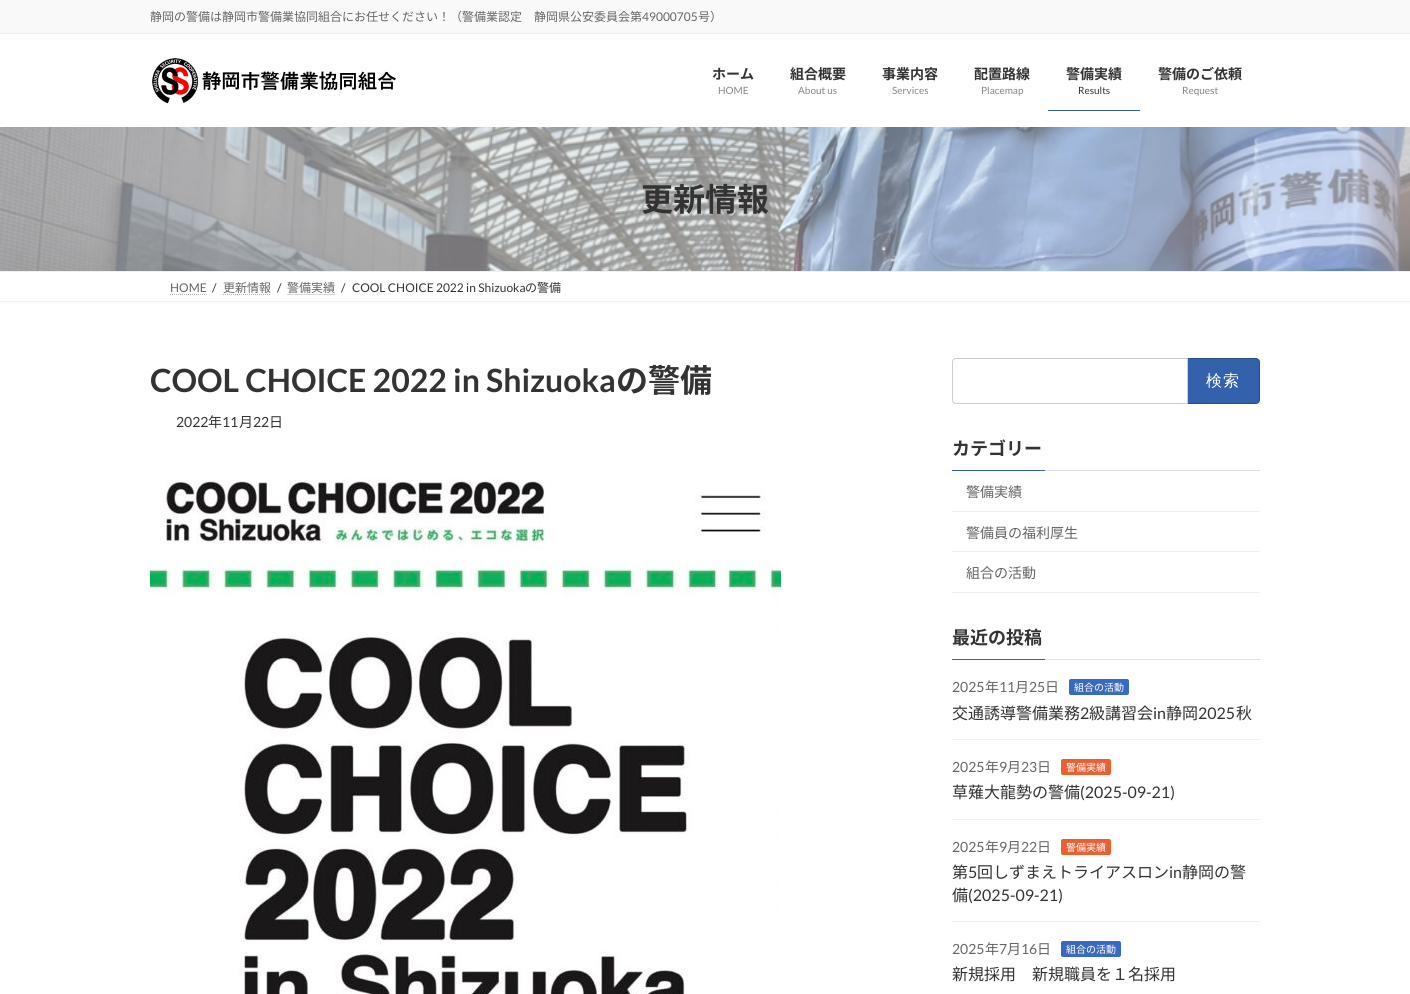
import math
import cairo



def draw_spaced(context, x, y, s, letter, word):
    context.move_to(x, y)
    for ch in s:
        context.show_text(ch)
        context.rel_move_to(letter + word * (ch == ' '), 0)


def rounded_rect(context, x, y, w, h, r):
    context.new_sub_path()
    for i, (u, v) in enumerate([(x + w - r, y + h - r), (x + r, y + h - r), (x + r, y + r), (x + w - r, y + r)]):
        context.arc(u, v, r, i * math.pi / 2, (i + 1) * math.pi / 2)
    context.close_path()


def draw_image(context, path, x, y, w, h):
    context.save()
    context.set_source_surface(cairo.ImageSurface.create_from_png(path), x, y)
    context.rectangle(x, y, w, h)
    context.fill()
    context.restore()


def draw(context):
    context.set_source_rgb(1, 1, 1)
    context.paint()
    context.set_source_rgb(249 / 255, 249 / 255, 249 / 255)
    context.rectangle(0, 0, 1410, 33)
    context.fill()
    context.set_source_rgb(239 / 255, 239 / 255, 239 / 255)
    context.rectangle(0, 33, 1410, 1)
    context.fill()
    draw_image(context, "images/1.png", 152, 58, 244, 46)
    context.set_source_rgb(52 / 255, 97 / 255, 172 / 255)
    context.rectangle(1048, 110, 92, 1)
    context.fill()
    draw_image(context, "images/2.png", 0, 127, 1410, 144)
    context.set_source_rgb(240 / 255, 240 / 255, 240 / 255)
    context.rectangle(0, 271, 1410, 1)
    context.fill()
    context.rectangle(0, 301, 1410, 1)
    context.fill()
    context.new_path()
    context.move_to(170, 294.5)
    context.line_to(206.5, 294.5)
    context.set_source_rgb(179 / 255, 179 / 255, 179 / 255)
    context.set_line_width(1)
    context.set_dash([1, 1])
    context.stroke()
    context.new_path()
    context.move_to(223, 294.5)
    context.line_to(271, 294.5)
    context.stroke()
    context.new_path()
    context.move_to(287.5, 294.5)
    context.line_to(335.5, 294.5)
    context.stroke()
    draw_image(context, "images/3.png", 150, 479, 631, 515)
    context.new_path()
    context.move_to(956, 358.5)
    context.line_to(1187.5, 358.5)
    context.line_to(1187.5, 403.5)
    context.line_to(956, 403.5)
    context.curve_to(954, 403.5, 952.5, 402, 952.5, 400)
    context.line_to(952.5, 362)
    context.curve_to(952.5, 360, 954, 358.5, 956, 358.5)
    context.close_path()
    context.set_source_rgb(204 / 255, 204 / 255, 204 / 255)
    context.set_dash([])
    context.stroke()
    context.set_source_rgb(52 / 255, 97 / 255, 172 / 255)
    context.new_path()
    context.move_to(1188, 358)
    context.line_to(1256, 358)
    context.curve_to(1258, 358, 1260, 360, 1260, 362)
    context.line_to(1260, 400)
    context.curve_to(1260, 402, 1258, 404, 1256, 404)
    context.line_to(1188, 404)
    context.close_path()
    context.fill()
    context.set_source_rgba(0, 0, 0, 0.2)
    context.set_fill_rule(cairo.FillRule.EVEN_ODD)
    context.new_path()
    context.move_to(1188, 358)
    context.line_to(1256, 358)
    context.curve_to(1258, 358, 1260, 360, 1260, 362)
    context.line_to(1260, 400)
    context.curve_to(1260, 402, 1258, 404, 1256, 404)
    context.line_to(1188, 404)
    context.close_path()
    context.move_to(1188, 359)
    context.line_to(1256, 359)
    context.curve_to(1258, 359, 1259, 360, 1259, 362)
    context.line_to(1259, 400)
    context.curve_to(1259, 402, 1258, 403, 1256, 403)
    context.line_to(1188, 403)
    context.close_path()
    context.fill()
    context.set_source_rgb(224 / 255, 224 / 255, 224 / 255)
    context.rectangle(1045, 470, 215, 1)
    context.fill()
    context.set_source_rgb(52 / 255, 97 / 255, 172 / 255)
    context.rectangle(952, 470, 93, 1)
    context.fill()
    context.set_source_rgb(240 / 255, 240 / 255, 240 / 255)
    context.rectangle(952, 511, 308, 1)
    context.fill()
    context.rectangle(952, 551, 308, 1)
    context.fill()
    context.rectangle(952, 592, 308, 1)
    context.fill()
    context.set_source_rgb(224 / 255, 224 / 255, 224 / 255)
    context.rectangle(1045, 659, 215, 1)
    context.fill()
    context.set_source_rgb(52 / 255, 97 / 255, 172 / 255)
    context.rectangle(952, 659, 93, 1)
    context.fill()
    context.set_source_rgb(240 / 255, 240 / 255, 240 / 255)
    context.rectangle(952, 739, 308, 1)
    context.fill()
    context.set_source_rgb(57 / 255, 106 / 255, 189 / 255)
    rounded_rect(context, 1069, 679, 60, 16, 2)
    context.fill()
    context.set_source_rgb(240 / 255, 240 / 255, 240 / 255)
    context.rectangle(952, 819, 308, 1)
    context.fill()
    context.set_source_rgb(234 / 255, 96 / 255, 53 / 255)
    rounded_rect(context, 1061, 759, 50, 16, 2)
    context.fill()
    context.set_source_rgb(240 / 255, 240 / 255, 240 / 255)
    context.rectangle(952, 921, 308, 1)
    context.fill()
    context.set_source_rgb(234 / 255, 96 / 255, 53 / 255)
    rounded_rect(context, 1061, 839, 50, 16, 2)
    context.fill()
    context.set_source_rgb(57 / 255, 106 / 255, 189 / 255)
    rounded_rect(context, 1061, 941, 60, 16, 2)
    context.fill()
    context.select_font_face("Noto Sans JP")
    context.set_font_size(12)
    context.set_source_rgb(102 / 255, 102 / 255, 102 / 255)
    context.move_to(150, 21)
    context.show_text("静岡の警備は静岡市警備業協同組合にお任せください！（警備業認定　静岡県公安委員会第")
    context.select_font_face("Lato")
    context.move_to(642, 21)
    context.show_text("49000705")
    context.select_font_face("Noto Sans JP")
    context.move_to(698, 21)
    context.show_text("号）")
    context.select_font_face("Noto Sans JP", cairo.FontSlant.NORMAL, cairo.FontWeight.BOLD)
    context.set_font_size(14)
    context.set_source_rgb(51 / 255, 51 / 255, 51 / 255)
    context.move_to(712, 79)
    context.show_text("ホーム")
    context.select_font_face("Lato")
    context.set_font_size(10)
    context.set_source_rgb(133 / 255, 133 / 255, 133 / 255)
    context.move_to(718, 94)
    context.show_text("HOME")
    context.select_font_face("Noto Sans JP", cairo.FontSlant.NORMAL, cairo.FontWeight.BOLD)
    context.set_font_size(14)
    context.set_source_rgb(51 / 255, 51 / 255, 51 / 255)
    context.move_to(790, 79)
    context.show_text("組合概要")
    context.select_font_face("Lato")
    context.set_font_size(10)
    context.set_source_rgb(133 / 255, 133 / 255, 133 / 255)
    context.move_to(798, 94)
    context.show_text("About us")
    context.select_font_face("Noto Sans JP", cairo.FontSlant.NORMAL, cairo.FontWeight.BOLD)
    context.set_font_size(14)
    context.set_source_rgb(51 / 255, 51 / 255, 51 / 255)
    context.move_to(882, 79)
    context.show_text("事業内容")
    context.select_font_face("Lato")
    context.set_font_size(10)
    context.set_source_rgb(133 / 255, 133 / 255, 133 / 255)
    context.move_to(892, 94)
    context.show_text("Services")
    context.select_font_face("Noto Sans JP", cairo.FontSlant.NORMAL, cairo.FontWeight.BOLD)
    context.set_font_size(14)
    context.set_source_rgb(51 / 255, 51 / 255, 51 / 255)
    context.move_to(974, 79)
    context.show_text("配置路線")
    context.select_font_face("Lato")
    context.set_font_size(10)
    context.set_source_rgb(133 / 255, 133 / 255, 133 / 255)
    context.move_to(981, 94)
    context.show_text("Placemap")
    context.select_font_face("Noto Sans JP", cairo.FontSlant.NORMAL, cairo.FontWeight.BOLD)
    context.set_font_size(14)
    context.set_source_rgb(51 / 255, 51 / 255, 51 / 255)
    context.move_to(1066, 79)
    context.show_text("警備実績")
    context.select_font_face("Lato")
    context.set_font_size(10)
    context.move_to(1078, 94)
    context.show_text("Results")
    context.select_font_face("Noto Sans JP", cairo.FontSlant.NORMAL, cairo.FontWeight.BOLD)
    context.set_font_size(14)
    context.move_to(1158, 79)
    context.show_text("警備のご依頼")
    context.select_font_face("Lato")
    context.set_font_size(10)
    context.set_source_rgb(133 / 255, 133 / 255, 133 / 255)
    context.move_to(1182, 94)
    context.show_text("Request")
    context.select_font_face("Noto Sans JP", cairo.FontSlant.NORMAL, cairo.FontWeight.BOLD)
    context.set_font_size(32)
    context.set_source_rgb(51 / 255, 51 / 255, 51 / 255)
    context.move_to(641, 211)
    context.show_text("更新情報")
    context.select_font_face("Lato")
    context.set_font_size(12)
    context.set_source_rgb(102 / 255, 102 / 255, 102 / 255)
    context.move_to(170, 292)
    context.show_text("HOME")
    context.set_source_rgb(51 / 255, 51 / 255, 51 / 255)
    context.move_to(212, 292)
    context.show_text("/")
    context.select_font_face("Noto Sans JP")
    context.set_source_rgb(102 / 255, 102 / 255, 102 / 255)
    context.move_to(223, 292)
    context.show_text("更新情報")
    context.select_font_face("Lato")
    context.set_source_rgb(51 / 255, 51 / 255, 51 / 255)
    context.move_to(277, 292)
    context.show_text("/")
    context.select_font_face("Noto Sans JP")
    context.set_source_rgb(102 / 255, 102 / 255, 102 / 255)
    context.move_to(287, 292)
    context.show_text("警備実績")
    context.select_font_face("Lato")
    context.set_source_rgb(51 / 255, 51 / 255, 51 / 255)
    context.move_to(341, 292)
    context.show_text("/")
    context.move_to(352, 292)
    context.show_text("COOL CHOICE 2022 in Shizuoka")
    context.select_font_face("Noto Sans JP")
    context.move_to(525, 292)
    context.show_text("の警備")
    context.select_font_face("Lato", cairo.FontSlant.NORMAL, cairo.FontWeight.BOLD)
    context.set_font_size(32)
    context.move_to(150, 392)
    context.show_text("COOL CHOICE 2022 in Shizuoka")
    context.select_font_face("Noto Sans JP", cairo.FontSlant.NORMAL, cairo.FontWeight.BOLD)
    context.move_to(616, 392)
    context.show_text("の警備")
    context.select_font_face("Lato")
    context.set_font_size(14)
    context.move_to(176, 427)
    context.show_text("2022")
    context.select_font_face("Noto Sans JP")
    context.move_to(208, 427)
    context.show_text("年")
    context.select_font_face("Lato")
    context.move_to(222, 427)
    context.show_text("11")
    context.select_font_face("Noto Sans JP")
    context.move_to(239, 427)
    context.show_text("月")
    context.select_font_face("Lato")
    context.move_to(253, 427)
    context.show_text("22")
    context.select_font_face("Noto Sans JP")
    context.move_to(269, 427)
    context.show_text("日")
    context.select_font_face("WenQuanYi Zen Hei Medium")
    context.set_font_size(16)
    context.set_source_rgb(1, 1, 1)
    draw_spaced(context, 1206, 386, "検索", 1, 0)
    context.select_font_face("Noto Sans JP", cairo.FontSlant.NORMAL, cairo.FontWeight.BOLD)
    context.set_font_size(18)
    context.set_source_rgb(51 / 255, 51 / 255, 51 / 255)
    context.move_to(952, 455)
    context.show_text("カテゴリー")
    context.select_font_face("Noto Sans JP")
    context.set_font_size(14)
    context.set_source_rgb(102 / 255, 102 / 255, 102 / 255)
    context.move_to(966, 497)
    context.show_text("警備実績")
    context.move_to(966, 538)
    context.show_text("警備員の福利厚生")
    context.move_to(966, 578)
    context.show_text("組合の活動")
    context.select_font_face("Noto Sans JP", cairo.FontSlant.NORMAL, cairo.FontWeight.BOLD)
    context.set_font_size(18)
    context.set_source_rgb(51 / 255, 51 / 255, 51 / 255)
    context.move_to(952, 644)
    context.show_text("最近の投稿")
    context.select_font_face("Lato")
    context.set_font_size(14)
    context.set_source_rgb(102 / 255, 102 / 255, 102 / 255)
    context.move_to(952, 692)
    context.show_text("2025")
    context.select_font_face("Noto Sans JP")
    context.move_to(985, 692)
    context.show_text("年")
    context.select_font_face("Lato")
    context.move_to(999, 692)
    context.show_text("11")
    context.select_font_face("Noto Sans JP")
    context.move_to(1015, 692)
    context.show_text("月")
    context.select_font_face("Lato")
    context.move_to(1029, 692)
    context.show_text("25")
    context.select_font_face("Noto Sans JP")
    context.move_to(1045, 692)
    context.show_text("日")
    context.set_font_size(10)
    context.set_source_rgb(1, 1, 1)
    context.move_to(1074, 691)
    context.show_text("組合の活動")
    context.set_font_size(16)
    context.set_source_rgb(51 / 255, 51 / 255, 51 / 255)
    context.move_to(952, 719)
    context.show_text("交通誘導警備業務")
    context.select_font_face("Lato")
    context.move_to(1080, 719)
    context.show_text("2")
    context.select_font_face("Noto Sans JP")
    context.move_to(1089, 719)
    context.show_text("級講習会")
    context.select_font_face("Lato")
    context.move_to(1153, 719)
    context.show_text("in")
    context.select_font_face("Noto Sans JP")
    context.move_to(1166, 719)
    context.show_text("静岡")
    context.select_font_face("Lato")
    context.move_to(1198, 719)
    context.show_text("2025")
    context.select_font_face("Noto Sans JP")
    context.move_to(1236, 719)
    context.show_text("秋")
    context.select_font_face("Lato")
    context.set_font_size(14)
    context.set_source_rgb(102 / 255, 102 / 255, 102 / 255)
    context.move_to(952, 772)
    context.show_text("2025")
    context.select_font_face("Noto Sans JP")
    context.move_to(985, 772)
    context.show_text("年")
    context.select_font_face("Lato")
    context.move_to(999, 772)
    context.show_text("9")
    context.select_font_face("Noto Sans JP")
    context.move_to(1007, 772)
    context.show_text("月")
    context.select_font_face("Lato")
    context.move_to(1021, 772)
    context.show_text("23")
    context.select_font_face("Noto Sans JP")
    context.move_to(1037, 772)
    context.show_text("日")
    context.set_font_size(10)
    context.set_source_rgb(1, 1, 1)
    context.move_to(1066, 771)
    context.show_text("警備実績")
    context.set_font_size(16)
    context.set_source_rgb(51 / 255, 51 / 255, 51 / 255)
    context.move_to(952, 798)
    context.show_text("草薙大龍勢の警備")
    context.select_font_face("Lato")
    context.move_to(1080, 798)
    context.show_text("(2025-09-21)")
    context.set_font_size(14)
    context.set_source_rgb(102 / 255, 102 / 255, 102 / 255)
    context.move_to(952, 852)
    context.show_text("2025")
    context.select_font_face("Noto Sans JP")
    context.move_to(985, 852)
    context.show_text("年")
    context.select_font_face("Lato")
    context.move_to(999, 852)
    context.show_text("9")
    context.select_font_face("Noto Sans JP")
    context.move_to(1007, 852)
    context.show_text("月")
    context.select_font_face("Lato")
    context.move_to(1021, 852)
    context.show_text("22")
    context.select_font_face("Noto Sans JP")
    context.move_to(1037, 852)
    context.show_text("日")
    context.set_font_size(10)
    context.set_source_rgb(1, 1, 1)
    context.move_to(1066, 851)
    context.show_text("警備実績")
    context.set_font_size(16)
    context.set_source_rgb(51 / 255, 51 / 255, 51 / 255)
    context.move_to(952, 878)
    context.show_text("第")
    context.select_font_face("Lato")
    context.move_to(968, 878)
    context.show_text("5")
    context.select_font_face("Noto Sans JP")
    context.move_to(977, 878)
    context.show_text("回しずまえトライアスロン")
    context.select_font_face("Lato")
    context.move_to(1169, 878)
    context.show_text("in")
    context.select_font_face("Noto Sans JP")
    context.move_to(1182, 878)
    context.show_text("静岡の警")
    context.move_to(952, 901)
    context.show_text("備")
    context.select_font_face("Lato")
    context.move_to(968, 901)
    context.show_text("(2025-09-21)")
    context.set_font_size(14)
    context.set_source_rgb(102 / 255, 102 / 255, 102 / 255)
    context.move_to(952, 954)
    context.show_text("2025")
    context.select_font_face("Noto Sans JP")
    context.move_to(985, 954)
    context.show_text("年")
    context.select_font_face("Lato")
    context.move_to(999, 954)
    context.show_text("7")
    context.select_font_face("Noto Sans JP")
    context.move_to(1007, 954)
    context.show_text("月")
    context.select_font_face("Lato")
    context.move_to(1021, 954)
    context.show_text("16")
    context.select_font_face("Noto Sans JP")
    context.move_to(1037, 954)
    context.show_text("日")
    context.set_font_size(10)
    context.set_source_rgb(1, 1, 1)
    context.move_to(1066, 953)
    context.show_text("組合の活動")
    context.set_font_size(16)
    context.set_source_rgb(51 / 255, 51 / 255, 51 / 255)
    context.move_to(952, 980)
    context.show_text("新規採用　新規職員を１名採用")


surface = cairo.ImageSurface(cairo.Format.RGB24, 1410, 994)
context = cairo.Context(surface)
options = cairo.FontOptions()
options.set_hint_metrics(cairo.HintMetrics.OFF)
options.set_hint_style(cairo.HintStyle.NONE)
context.set_font_options(options)
context.set_miter_limit(4)
draw(context)
surface.write_to_png("out.png")
